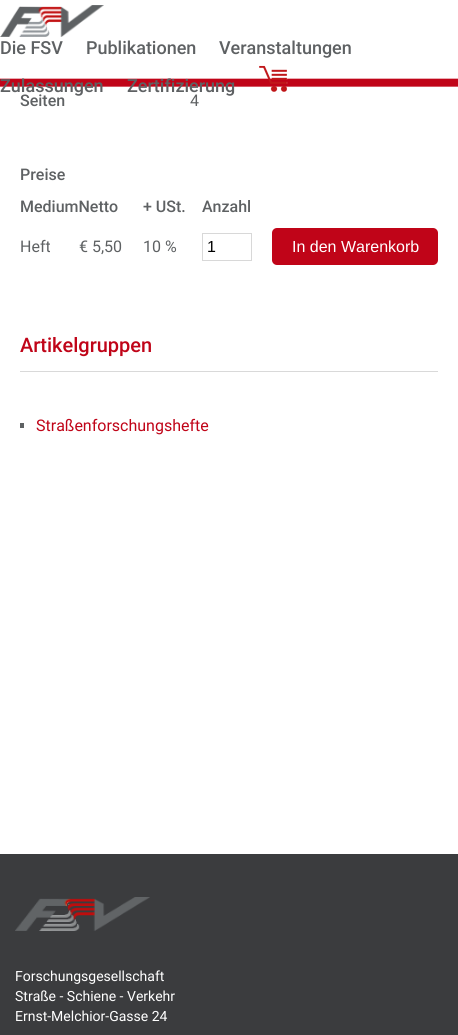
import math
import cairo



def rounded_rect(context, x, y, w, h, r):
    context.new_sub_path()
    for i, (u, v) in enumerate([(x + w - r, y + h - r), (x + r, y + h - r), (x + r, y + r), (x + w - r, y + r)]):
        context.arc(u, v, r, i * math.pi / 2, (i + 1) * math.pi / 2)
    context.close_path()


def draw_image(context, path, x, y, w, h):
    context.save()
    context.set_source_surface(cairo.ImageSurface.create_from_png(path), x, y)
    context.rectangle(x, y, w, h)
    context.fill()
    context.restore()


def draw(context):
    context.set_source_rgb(1, 1, 1)
    context.paint()
    draw_image(context, "images/1.png", 0, 5, 104, 32)
    draw_image(context, "images/3.png", 0, 75, 458, 12)
    draw_image(context, "images/2.png", 259, 65, 29, 27)
    context.rectangle(202.5, 233.5, 49, 27)
    context.set_source_rgb(216 / 255, 216 / 255, 216 / 255)
    context.set_line_width(1)
    context.stroke()
    context.set_source_rgb(192 / 255, 4 / 255, 24 / 255)
    rounded_rect(context, 272, 228, 166, 37, 5)
    context.fill()
    context.set_source_rgb(217 / 255, 217 / 255, 217 / 255)
    context.rectangle(20, 371, 418, 1)
    context.fill()
    context.set_source_rgb(94 / 255, 97 / 255, 99 / 255)
    context.rectangle(20, 423, 4, 5)
    context.fill()
    context.set_source_rgb(59 / 255, 60 / 255, 62 / 255)
    context.rectangle(0, 854, 458, 181)
    context.fill()
    draw_image(context, "images/4.png", 15, 897, 135, 34)
    context.select_font_face("Roboto Medium")
    context.set_font_size(18)
    context.set_source_rgb(94 / 255, 97 / 255, 99 / 255)
    context.move_to(0, 54)
    context.show_text("Die FSV")
    context.move_to(86, 54)
    context.show_text("Publikationen")
    context.move_to(219, 54)
    context.show_text("Veranstaltungen")
    context.move_to(0, 92)
    context.show_text("Zulassungen")
    context.move_to(127, 92)
    context.show_text("Zertifizierung")
    context.set_font_size(16)
    context.move_to(20, 106)
    context.show_text("Seiten")
    context.select_font_face("Roboto")
    context.move_to(190, 106)
    context.show_text("4")
    context.select_font_face("Roboto Medium")
    context.move_to(20, 180)
    context.show_text("Preise")
    context.move_to(20, 212)
    context.show_text("MediumNetto")
    context.move_to(143, 212)
    context.show_text("+ USt.")
    context.move_to(202, 212)
    context.show_text("Anzahl")
    context.select_font_face("Roboto")
    context.move_to(20, 252)
    context.show_text("Heft")
    context.move_to(79, 252)
    context.show_text("€ 5,50")
    context.move_to(143, 252)
    context.show_text("10 %")
    context.select_font_face("Liberation Sans")
    context.set_source_rgb(0, 0, 0)
    context.move_to(207, 252)
    context.show_text("1")
    context.set_source_rgb(1, 1, 1)
    context.move_to(292, 252)
    context.show_text("In den Warenkorb")
    context.select_font_face("Roboto Medium")
    context.set_font_size(20)
    context.set_source_rgb(192 / 255, 4 / 255, 24 / 255)
    context.move_to(20, 352)
    context.show_text("Artikelgruppen")
    context.select_font_face("Roboto")
    context.set_font_size(16)
    context.move_to(36, 431)
    context.show_text("Straßenforschungshefte")
    context.set_font_size(14)
    context.set_source_rgb(1, 1, 1)
    context.move_to(15, 981)
    context.show_text("Forschungsgesellschaft")
    context.move_to(15, 1001)
    context.show_text("Straße - Schiene - Verkehr")
    context.move_to(15, 1021)
    context.show_text("Ernst-Melchior-Gasse 24")


surface = cairo.ImageSurface(cairo.Format.RGB24, 458, 1035)
context = cairo.Context(surface)
options = cairo.FontOptions()
options.set_hint_metrics(cairo.HintMetrics.OFF)
options.set_hint_style(cairo.HintStyle.NONE)
context.set_font_options(options)
context.set_miter_limit(4)
draw(context)
surface.write_to_png("out.png")
